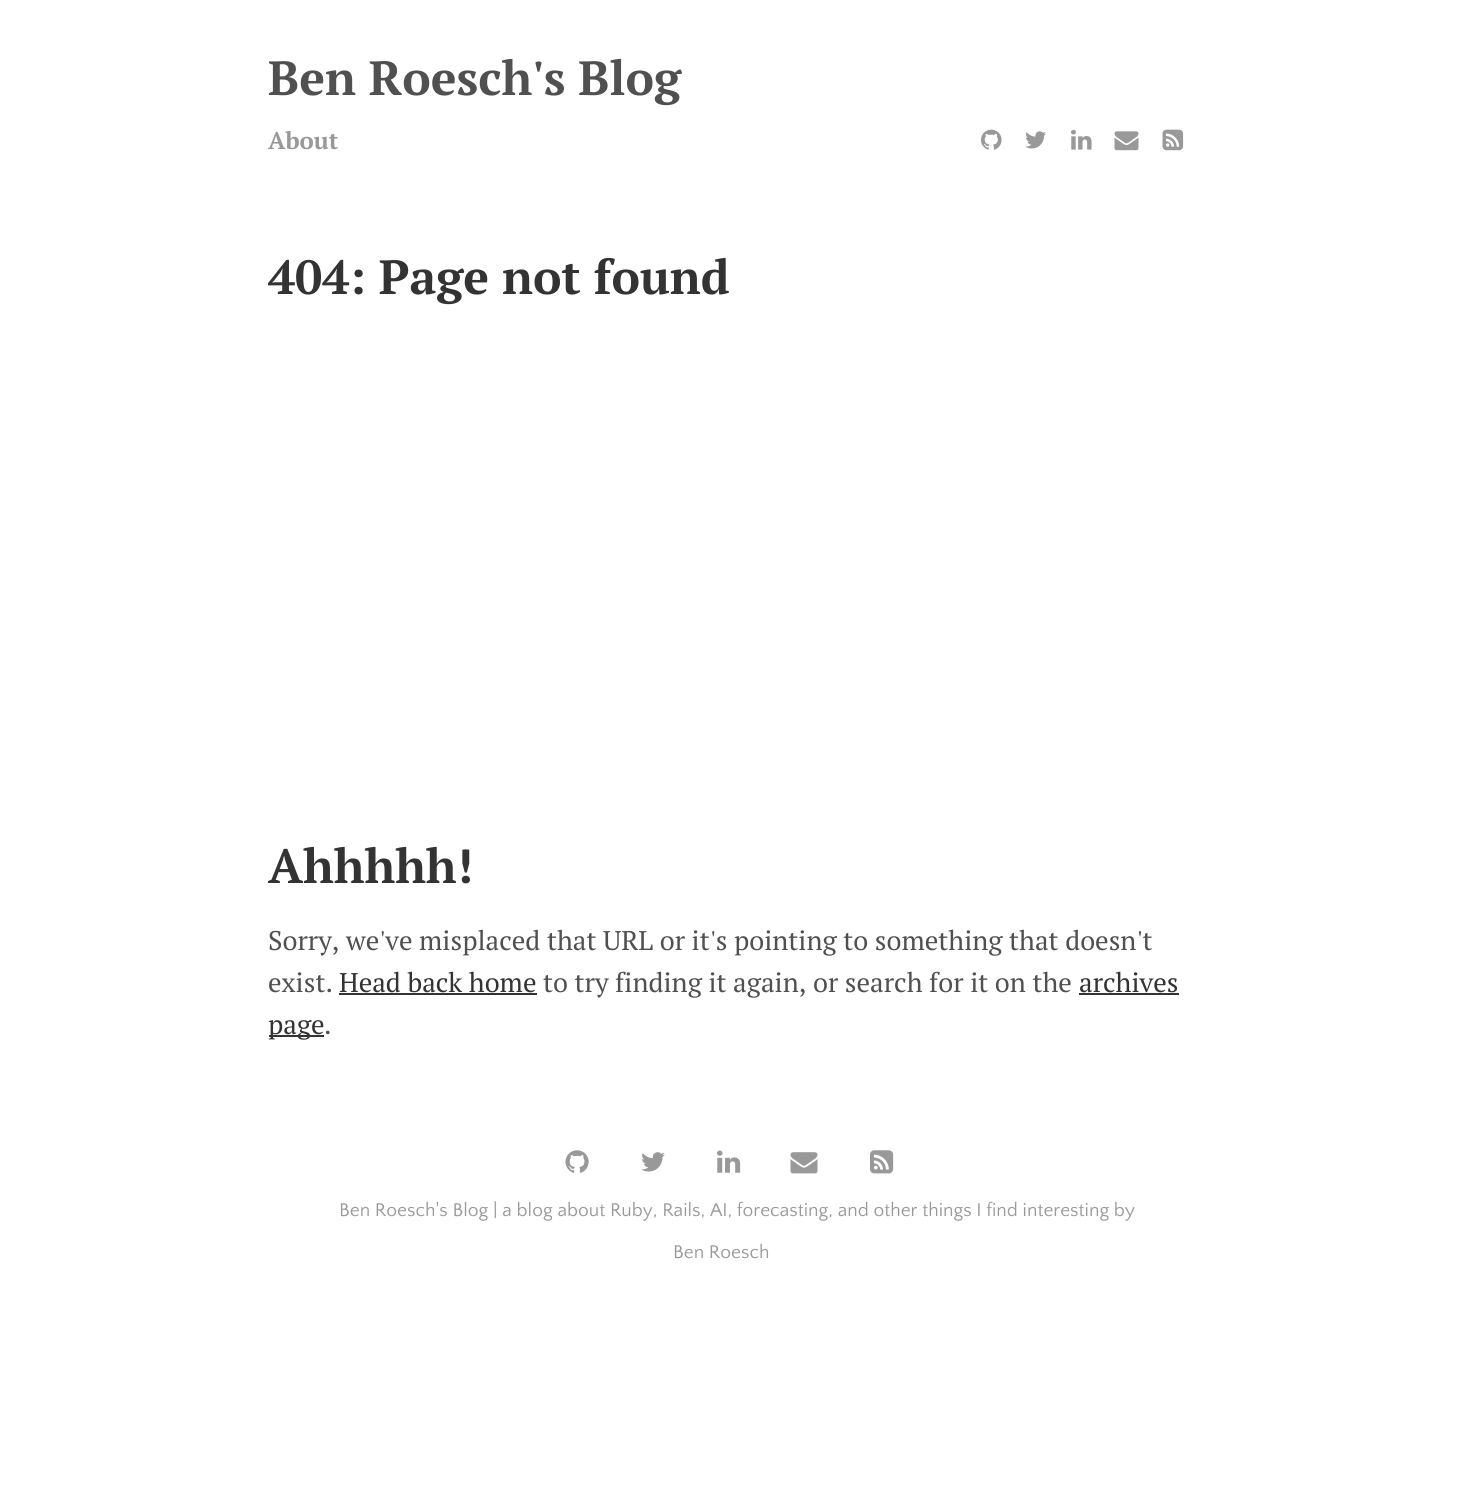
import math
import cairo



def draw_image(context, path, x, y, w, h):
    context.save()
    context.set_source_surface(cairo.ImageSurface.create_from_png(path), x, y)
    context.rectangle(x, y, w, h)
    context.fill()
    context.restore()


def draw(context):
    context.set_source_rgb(1, 1, 1)
    context.paint()
    draw_image(context, "images/1.png", 981, 129, 21, 21)
    draw_image(context, "images/2.png", 1025, 131, 21, 18)
    draw_image(context, "images/3.png", 1071, 129, 21, 21)
    draw_image(context, "images/4.png", 1114, 131, 25, 20)
    draw_image(context, "images/5.png", 1162, 129, 22, 22)
    context.set_source_rgb(51 / 255, 51 / 255, 51 / 255)
    context.rectangle(339, 993, 198, 2)
    context.fill()
    context.rectangle(1079, 993, 100, 2)
    context.fill()
    context.rectangle(269, 1035, 55, 2)
    context.fill()
    draw_image(context, "images/6.png", 565, 1150, 24, 23)
    draw_image(context, "images/7.png", 641, 1152, 24, 20)
    draw_image(context, "images/8.png", 717, 1150, 24, 23)
    draw_image(context, "images/9.png", 790, 1152, 28, 22)
    draw_image(context, "images/10.png", 870, 1150, 24, 24)
    context.select_font_face("PT Serif", cairo.FontSlant.NORMAL, cairo.FontWeight.BOLD)
    context.set_font_size(48)
    context.set_source_rgb(80 / 255, 80 / 255, 80 / 255)
    context.move_to(268, 95)
    context.show_text("Ben Roesch's Blog")
    context.set_font_size(24)
    context.set_source_rgb(153 / 255, 153 / 255, 153 / 255)
    context.move_to(268, 149)
    context.show_text("About")
    context.set_font_size(48)
    context.set_source_rgb(51 / 255, 51 / 255, 51 / 255)
    context.move_to(268, 294)
    context.show_text("404: Page not found")
    context.move_to(268, 883)
    context.show_text("Ahhhhh!")
    context.select_font_face("PT Serif")
    context.set_font_size(27)
    context.set_source_rgb(80 / 255, 80 / 255, 80 / 255)
    context.move_to(268, 950)
    context.show_text("Sorry, we've misplaced that URL or it's pointing to something that doesn't")
    context.move_to(268, 992)
    context.show_text("exist.")
    context.set_source_rgb(51 / 255, 51 / 255, 51 / 255)
    context.move_to(339, 992)
    context.show_text("Head back home")
    context.set_source_rgb(80 / 255, 80 / 255, 80 / 255)
    context.move_to(543, 992)
    context.show_text("to try finding it again, or search for it on the")
    context.set_source_rgb(51 / 255, 51 / 255, 51 / 255)
    context.move_to(1079, 992)
    context.show_text("archives")
    context.move_to(268, 1034)
    context.show_text("page")
    context.set_source_rgb(80 / 255, 80 / 255, 80 / 255)
    context.move_to(324, 1034)
    context.show_text(".")
    context.select_font_face("Quattrocento Sans")
    context.set_font_size(19.2)
    context.set_source_rgb(153 / 255, 153 / 255, 153 / 255)
    context.move_to(339, 1216)
    context.show_text("Ben Roesch's Blog | a blog about Ruby, Rails, AI, forecasting, and other things I find interesting by")
    context.move_to(673, 1258)
    context.show_text("Ben Roesch")


surface = cairo.ImageSurface(cairo.Format.RGB24, 1458, 1511)
context = cairo.Context(surface)
options = cairo.FontOptions()
options.set_hint_metrics(cairo.HintMetrics.OFF)
options.set_hint_style(cairo.HintStyle.NONE)
context.set_font_options(options)
context.set_miter_limit(4)
draw(context)
surface.write_to_png("out.png")
